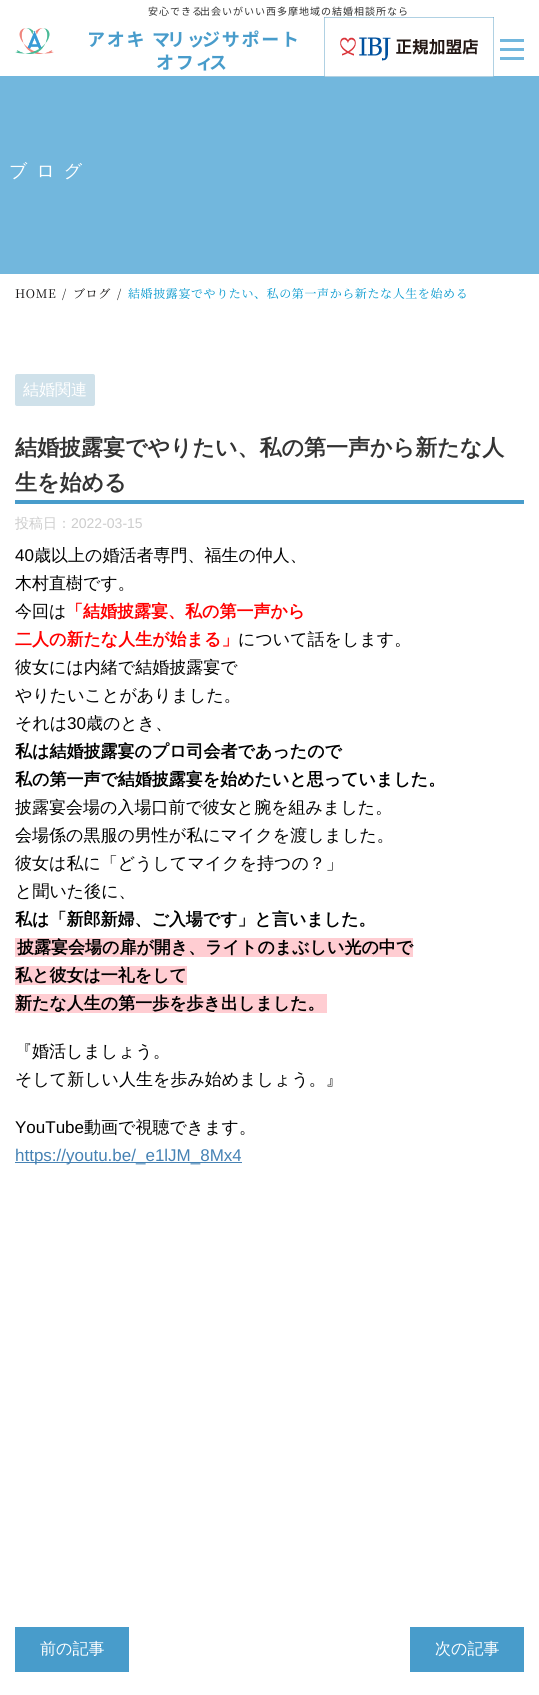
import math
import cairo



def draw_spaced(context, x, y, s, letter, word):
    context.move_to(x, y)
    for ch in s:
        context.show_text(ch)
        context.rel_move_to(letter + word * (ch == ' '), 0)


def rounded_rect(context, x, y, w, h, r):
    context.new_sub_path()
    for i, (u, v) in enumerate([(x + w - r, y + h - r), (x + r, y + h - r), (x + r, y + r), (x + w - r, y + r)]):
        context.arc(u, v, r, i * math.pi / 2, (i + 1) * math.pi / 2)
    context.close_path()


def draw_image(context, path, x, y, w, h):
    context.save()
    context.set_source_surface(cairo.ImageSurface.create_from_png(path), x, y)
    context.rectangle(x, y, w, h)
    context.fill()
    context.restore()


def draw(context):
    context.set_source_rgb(1, 1, 1)
    context.paint()
    draw_image(context, "images/1.png", 15, 28, 39, 26)
    context.set_source_rgb(114 / 255, 183 / 255, 221 / 255)
    context.rectangle(0, 76, 539, 198)
    context.fill()
    draw_image(context, "images/2.png", 324, 17, 170, 60)
    context.rectangle(500, 39, 24, 3)
    context.fill()
    context.rectangle(500, 48, 24, 3)
    context.fill()
    context.rectangle(500, 57, 24, 3)
    context.fill()
    context.set_source_rgb(207 / 255, 225 / 255, 234 / 255)
    rounded_rect(context, 15, 374, 80, 32, 2)
    context.fill()
    context.set_source_rgb(72 / 255, 156 / 255, 203 / 255)
    context.rectangle(15, 500, 509, 4)
    context.fill()
    context.set_source_rgb(1, 205 / 255, 210 / 255)
    context.rectangle(15, 938, 398, 19)
    context.fill()
    context.rectangle(15, 966, 172, 19)
    context.fill()
    context.rectangle(15, 994, 312, 19)
    context.fill()
    context.set_source_rgb(70 / 255, 130 / 255, 180 / 255)
    context.rectangle(15, 1162, 227, 1)
    context.fill()
    context.set_source_rgb(72 / 255, 156 / 255, 203 / 255)
    context.rectangle(15, 1627, 114, 45)
    context.fill()
    context.rectangle(410, 1627, 114, 45)
    context.fill()
    context.select_font_face("Noto Sans JP")
    context.set_font_size(10)
    context.set_source_rgb(51 / 255, 51 / 255, 51 / 255)
    draw_spaced(context, 148, 15, "安心できる", 1, 0)
    draw_spaced(context, 200, 15, "出会いがいい西多摩地域の結婚相談所なら", 1, 0)
    context.select_font_face("Noto Sans JP", cairo.FontSlant.NORMAL, cairo.FontWeight.BOLD)
    context.set_font_size(18)
    context.set_source_rgb(72 / 255, 156 / 255, 203 / 255)
    draw_spaced(context, 87, 46, "アオキ マ", 1.75, 0)
    draw_spaced(context, 167, 46, "リッ", 1.75, 0)
    draw_spaced(context, 202, 46, "ジサポート", 1.75, 0)
    draw_spaced(context, 156, 69, "オフィ", 1.75, 0)
    draw_spaced(context, 209, 69, "ス", 1.75, 0)
    context.select_font_face("WenQuanYi Zen Hei Medium")
    context.set_source_rgb(1, 1, 1)
    draw_spaced(context, 9, 177, "ブログ", 9, 0)
    context.select_font_face("Noto Serif JP")
    context.set_font_size(12)
    context.set_source_rgb(15 / 255, 14 / 255, 14 / 255)
    draw_spaced(context, 15, 298, "HOME", 0.6, 0)
    draw_spaced(context, 62, 298, "/", 0.6, 0)
    draw_spaced(context, 73, 298, "ブログ", 0.6, 0)
    draw_spaced(context, 117, 298, "/", 0.6, 0)
    context.set_source_rgb(0, 150 / 255, 205 / 255)
    draw_spaced(context, 128, 298, "結婚披露宴でやりたい、私の第一声から新たな人生を始める", 0.6, 0)
    context.select_font_face("WenQuanYi Zen Hei Medium")
    context.set_font_size(16)
    context.set_source_rgb(1, 1, 1)
    context.move_to(23, 395)
    context.show_text("結婚関連")
    context.select_font_face("WenQuanYi Zen Hei", cairo.FontSlant.NORMAL, cairo.FontWeight.BOLD)
    context.set_font_size(22)
    context.set_source_rgb(51 / 255, 51 / 255, 51 / 255)
    context.move_to(15, 455)
    context.show_text("結婚披露宴でやりたい、私の第一声から新たな人")
    context.move_to(15, 490)
    context.show_text("生を始める")
    context.select_font_face("WenQuanYi Zen Hei Medium")
    context.set_font_size(14)
    context.set_source_rgb(204 / 255, 204 / 255, 204 / 255)
    context.move_to(15, 528)
    context.show_text("投稿日：")
    context.select_font_face("Liberation Sans")
    context.move_to(71, 528)
    context.show_text("2022-03-15")
    context.set_font_size(17)
    context.set_source_rgb(0, 0, 0)
    context.move_to(15, 561)
    context.show_text("40")
    context.select_font_face("WenQuanYi Zen Hei Medium")
    context.move_to(34, 561)
    context.show_text("歳以上の婚活者専門、福生の仲人、")
    context.move_to(15, 589)
    context.show_text("木村直樹です。")
    context.move_to(15, 617)
    context.show_text("今回は")
    context.select_font_face("WenQuanYi Zen Hei", cairo.FontSlant.NORMAL, cairo.FontWeight.BOLD)
    context.set_source_rgb(1, 0, 0)
    context.move_to(66, 617)
    context.show_text("「結婚披露宴、私の第一声から")
    context.move_to(15, 645)
    context.show_text("二人の新たな人生が始まる」")
    context.select_font_face("WenQuanYi Zen Hei Medium")
    context.set_source_rgb(0, 0, 0)
    context.move_to(238, 645)
    context.show_text("について話をします。")
    context.move_to(15, 673)
    context.show_text("彼女には内緒で結婚披露宴で")
    context.move_to(15, 701)
    context.show_text("やりたいことがありました。")
    context.move_to(15, 729)
    context.show_text("それは")
    context.select_font_face("Liberation Sans")
    context.move_to(67, 729)
    context.show_text("30")
    context.select_font_face("WenQuanYi Zen Hei Medium")
    context.move_to(86, 729)
    context.show_text("歳のとき、")
    context.select_font_face("WenQuanYi Zen Hei", cairo.FontSlant.NORMAL, cairo.FontWeight.BOLD)
    context.move_to(15, 757)
    context.show_text("私は結婚披露宴のプロ司会者であったので")
    context.move_to(15, 785)
    context.show_text("私の第一声で結婚披露宴を始めたいと思っていました。")
    context.select_font_face("WenQuanYi Zen Hei Medium")
    context.move_to(15, 813)
    context.show_text("披露宴会場の入場口前で彼女と腕を組みました。")
    context.move_to(15, 841)
    context.show_text("会場係の黒服の男性が私にマイクを渡しました。")
    context.move_to(15, 869)
    context.show_text("彼女は私に「どうしてマイクを持つの？」")
    context.move_to(15, 897)
    context.show_text("と聞いた後に、")
    context.select_font_face("WenQuanYi Zen Hei", cairo.FontSlant.NORMAL, cairo.FontWeight.BOLD)
    context.move_to(15, 925)
    context.show_text("私は「新郎新婦、ご入場です」と言いました。")
    context.move_to(17, 953)
    context.show_text("披露宴会場の扉が開き、ライトのまぶしい光の中で")
    context.move_to(15, 981)
    context.show_text("私と彼女は一礼をして")
    context.move_to(15, 1009)
    context.show_text("新たな人生の第一歩を歩き出しました。")
    context.select_font_face("WenQuanYi Zen Hei Medium")
    context.move_to(15, 1057)
    context.show_text("『婚活しましょう。")
    context.move_to(15, 1085)
    context.show_text("そして新しい人生を歩み始めましょう。』")
    context.select_font_face("Liberation Sans")
    context.move_to(15, 1133)
    context.show_text("YouTube")
    context.select_font_face("WenQuanYi Zen Hei Medium")
    context.move_to(84, 1133)
    context.show_text("動画で視聴できます。")
    context.select_font_face("Liberation Sans")
    context.set_source_rgb(70 / 255, 130 / 255, 180 / 255)
    context.move_to(15, 1161)
    context.show_text("https://youtu.be/_e1lJM_8Mx4")
    context.select_font_face("WenQuanYi Zen Hei Medium")
    context.set_font_size(16)
    context.set_source_rgb(1, 1, 1)
    context.move_to(40, 1654)
    context.show_text("前の記事")
    context.move_to(435, 1654)
    context.show_text("次の記事")


surface = cairo.ImageSurface(cairo.Format.RGB24, 539, 1695)
context = cairo.Context(surface)
options = cairo.FontOptions()
options.set_hint_metrics(cairo.HintMetrics.OFF)
options.set_hint_style(cairo.HintStyle.NONE)
context.set_font_options(options)
context.set_miter_limit(4)
draw(context)
surface.write_to_png("out.png")
